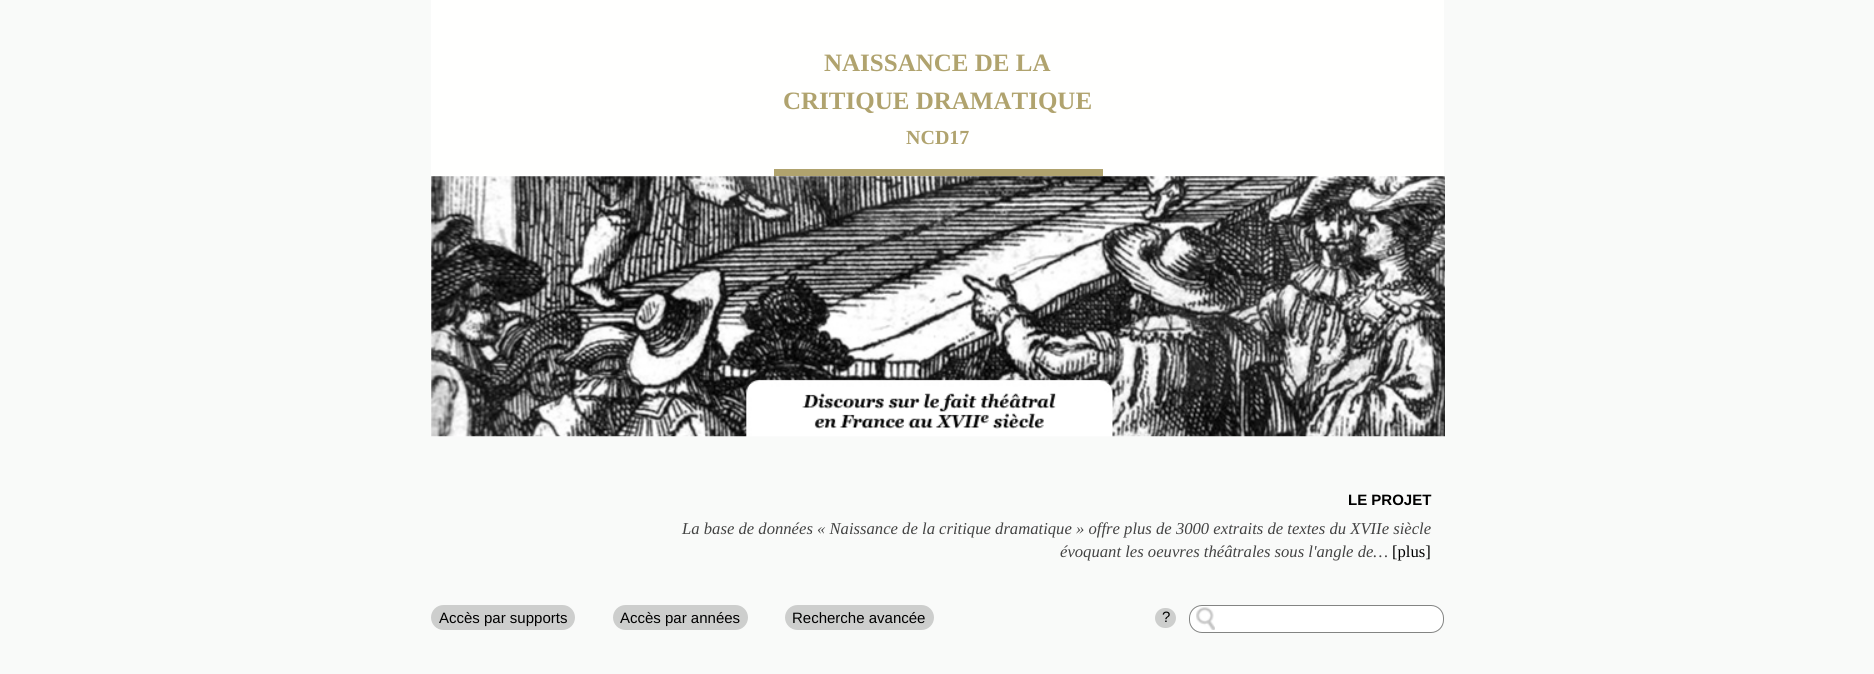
import math
import cairo



def rounded_rect(context, x, y, w, h, r):
    context.new_sub_path()
    for i, (u, v) in enumerate([(x + w - r, y + h - r), (x + r, y + h - r), (x + r, y + r), (x + w - r, y + r)]):
        context.arc(u, v, r, i * math.pi / 2, (i + 1) * math.pi / 2)
    context.close_path()


def draw_image(context, path, x, y, w, h):
    context.save()
    context.set_source_surface(cairo.ImageSurface.create_from_png(path), x, y)
    context.rectangle(x, y, w, h)
    context.fill()
    context.restore()


def draw(context):
    context.set_source_rgb(249 / 255, 250 / 255, 249 / 255)
    context.paint()
    context.set_source_rgb(1, 1, 254 / 255)
    context.rectangle(431, 0, 1013, 413)
    context.fill()
    context.set_source_rgb(176 / 255, 163 / 255, 110 / 255)
    context.rectangle(774, 169, 329, 7)
    context.fill()
    draw_image(context, "images/1.png", 431, 176, 1014, 261)
    context.set_source_rgb(205 / 255, 206 / 255, 205 / 255)
    rounded_rect(context, 431, 605, 144, 25, 12.5)
    context.fill()
    rounded_rect(context, 613, 605, 135, 25, 12.5)
    context.fill()
    rounded_rect(context, 785, 605, 149, 25, 12.5)
    context.fill()
    rounded_rect(context, 1155, 608, 21, 20, 10)
    context.fill()
    context.set_source_rgb(1, 1, 1)
    rounded_rect(context, 1189, 605, 255, 28, 13)
    context.fill()
    draw_image(context, "images/2.png", 1196, 607, 19, 23)
    rounded_rect(context, 1189.5, 605.5, 254, 27, 12.5)
    context.set_source_rgb(131 / 255, 132 / 255, 131 / 255)
    context.set_line_width(1)
    context.stroke()
    context.select_font_face("Liberation Serif", cairo.FontSlant.NORMAL, cairo.FontWeight.BOLD)
    context.set_font_size(25)
    context.set_source_rgb(176 / 255, 163 / 255, 110 / 255)
    context.move_to(824, 71)
    context.show_text("NAISSANCE DE LA")
    context.move_to(783, 109)
    context.show_text("CRITIQUE DRAMATIQUE")
    context.set_font_size(20)
    context.move_to(906, 144)
    context.show_text("NCD17")
    context.select_font_face("Liberation Sans", cairo.FontSlant.NORMAL, cairo.FontWeight.BOLD)
    context.set_font_size(15)
    context.set_source_rgb(0, 0, 0)
    context.move_to(1348, 505)
    context.show_text("LE PROJET")
    context.select_font_face("Liberation Serif", cairo.FontSlant.ITALIC)
    context.set_font_size(16.65)
    context.set_source_rgb(67 / 255, 67 / 255, 67 / 255)
    context.move_to(682, 534)
    context.show_text("La base de données « Naissance de la critique dramatique » offre plus de 3000 extraits de textes du XVIIe siècle")
    context.move_to(1060, 557)
    context.show_text("évoquant les oeuvres théâtrales sous l'angle de…")
    context.select_font_face("Liberation Serif")
    context.set_source_rgb(0, 0, 0)
    context.move_to(1392, 557)
    context.show_text("[plus]")
    context.select_font_face("Liberation Sans")
    context.set_font_size(15)
    context.move_to(439, 623)
    context.show_text("Accès par supports")
    context.move_to(620, 623)
    context.show_text("Accès par années")
    context.move_to(792, 623)
    context.show_text("Recherche avancée")
    context.move_to(1162, 622)
    context.show_text("?")


surface = cairo.ImageSurface(cairo.Format.RGB24, 1874, 674)
context = cairo.Context(surface)
options = cairo.FontOptions()
options.set_hint_metrics(cairo.HintMetrics.OFF)
options.set_hint_style(cairo.HintStyle.NONE)
context.set_font_options(options)
context.set_miter_limit(4)
draw(context)
surface.write_to_png("out.png")
